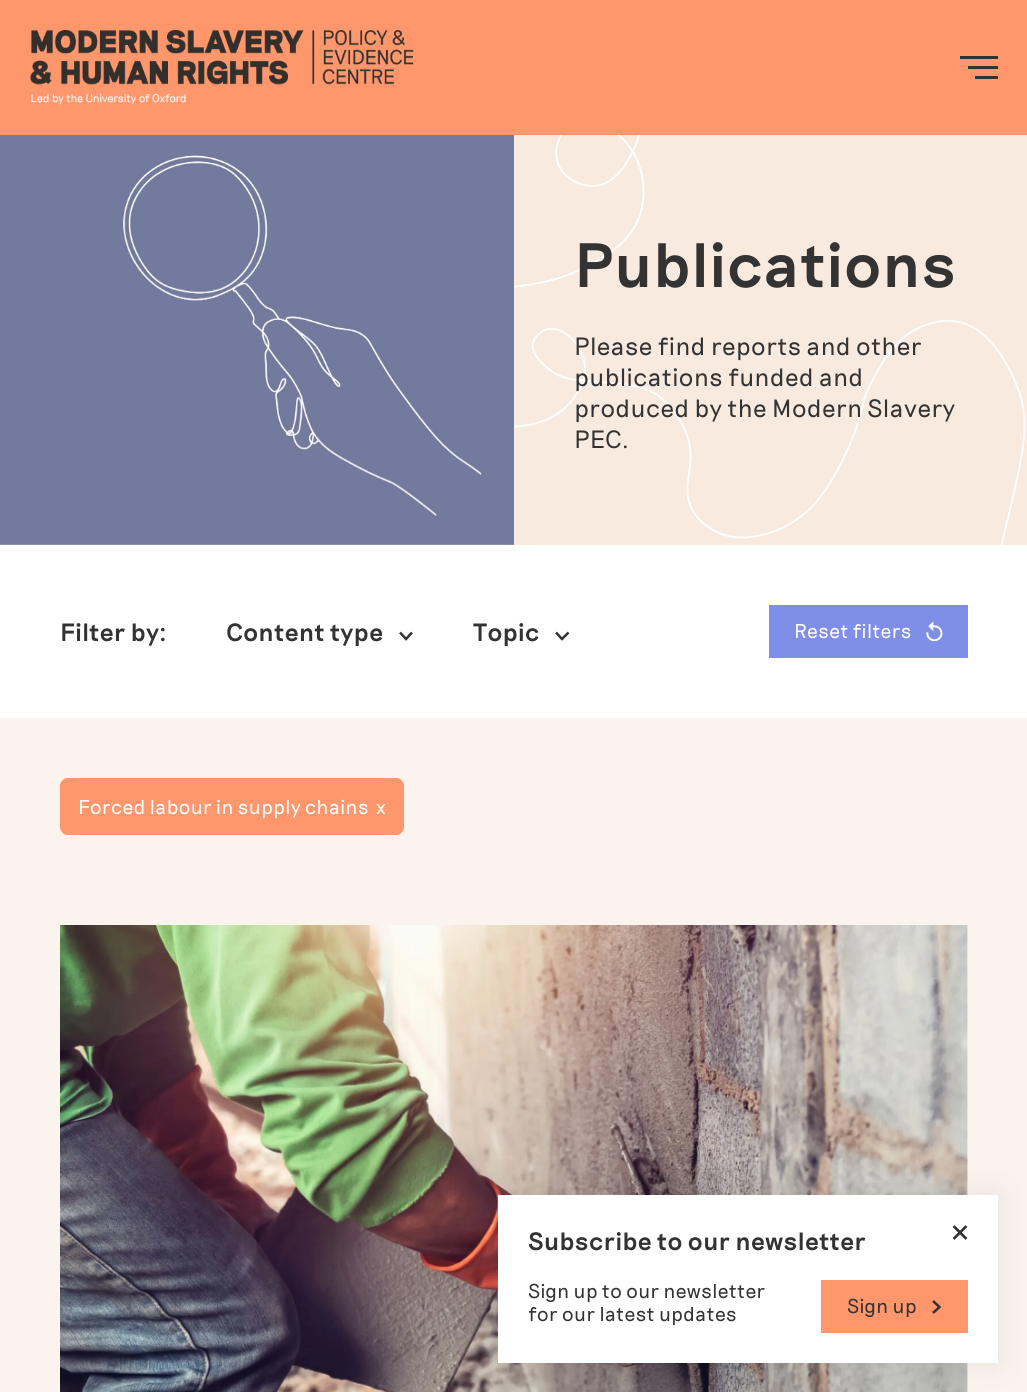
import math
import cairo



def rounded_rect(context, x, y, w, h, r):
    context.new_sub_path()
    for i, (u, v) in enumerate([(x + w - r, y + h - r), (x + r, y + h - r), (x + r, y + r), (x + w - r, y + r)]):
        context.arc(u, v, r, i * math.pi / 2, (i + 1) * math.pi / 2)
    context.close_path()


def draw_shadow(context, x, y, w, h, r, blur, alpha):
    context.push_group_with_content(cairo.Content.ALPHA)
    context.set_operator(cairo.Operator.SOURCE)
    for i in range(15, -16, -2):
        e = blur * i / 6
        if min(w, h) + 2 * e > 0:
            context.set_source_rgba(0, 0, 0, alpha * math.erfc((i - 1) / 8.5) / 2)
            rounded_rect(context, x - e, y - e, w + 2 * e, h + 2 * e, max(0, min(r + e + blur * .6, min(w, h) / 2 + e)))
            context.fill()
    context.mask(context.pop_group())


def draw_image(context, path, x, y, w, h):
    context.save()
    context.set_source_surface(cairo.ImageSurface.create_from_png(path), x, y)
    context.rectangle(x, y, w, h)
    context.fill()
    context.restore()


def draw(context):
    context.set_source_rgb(1, 1, 1)
    context.paint()
    context.set_source_rgb(1, 151 / 255, 109 / 255)
    context.rectangle(0, 0, 1027, 135)
    context.fill()
    draw_image(context, "images/1.png", 30, 30, 384, 75)
    context.set_source_rgb(51 / 255, 51 / 255, 51 / 255)
    context.rectangle(960, 56, 38, 3)
    context.fill()
    context.rectangle(968, 66, 30, 3)
    context.fill()
    context.rectangle(975, 76, 23, 3)
    context.fill()
    draw_image(context, "images/2.png", 0, 135, 514, 410)
    context.set_source_rgb(248 / 255, 234 / 255, 222 / 255)
    context.rectangle(514, 135, 513, 410)
    context.fill()
    draw_image(context, "images/3.png", 514, 135, 512, 410)
    context.new_path()
    context.move_to(400, 632.5)
    context.line_to(406, 639)
    context.line_to(412, 632.5)
    context.set_source_rgb(51 / 255, 51 / 255, 51 / 255)
    context.set_line_width(2.5)
    context.stroke()
    context.new_path()
    context.move_to(556, 632.5)
    context.line_to(562, 639)
    context.line_to(568.5, 632.5)
    context.stroke()
    context.set_source_rgb(127 / 255, 142 / 255, 230 / 255)
    context.rectangle(769, 605, 199, 53)
    context.fill()
    draw_image(context, "images/4.png", 926, 621, 17, 20)
    context.set_source_rgb(250 / 255, 243 / 255, 238 / 255)
    context.rectangle(0, 718, 1027, 674)
    context.fill()
    context.set_source_rgb(1, 151 / 255, 109 / 255)
    rounded_rect(context, 61.5, 779.5, 341, 54, 6.5)
    context.fill_preserve()
    context.set_line_width(3)
    context.stroke()
    context.set_source_rgb(1, 1, 1)
    context.rectangle(60, 925, 908, 467)
    context.fill()
    draw_image(context, "images/5.png", 60, 925, 908, 467)
    context.set_source_rgb(51 / 255, 51 / 255, 51 / 255)
    draw_shadow(context, 498, 1195, 500, 168, 0, 15, 0.1)
    context.set_source_rgb(1, 1, 1)
    context.rectangle(498, 1195, 500, 168)
    context.fill()
    context.set_source_rgb(1, 151 / 255, 109 / 255)
    context.rectangle(821, 1280, 147, 53)
    context.fill()
    context.new_path()
    context.move_to(933, 1313)
    context.line_to(939.5, 1307)
    context.line_to(933, 1301)
    context.set_source_rgb(51 / 255, 51 / 255, 51 / 255)
    context.set_line_width(2.5)
    context.stroke()
    context.save()
    context.rectangle(953, 1225, 15, 15)
    context.clip()
    context.new_path()
    context.move_to(954.5, 1227)
    context.line_to(965.5, 1238)
    context.move_to(965.5, 1227)
    context.line_to(954.5, 1238)
    context.set_line_width(2.7)
    context.set_line_cap(cairo.LineCap.SQUARE)
    context.stroke()
    context.restore()
    context.select_font_face("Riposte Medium")
    context.set_font_size(62.5)
    context.move_to(574, 287)
    context.show_text("Publications")
    context.select_font_face("Riposte Light")
    context.set_font_size(25)
    context.move_to(574, 355)
    context.show_text("Please find reports and other")
    context.move_to(574, 386)
    context.show_text("publications funded and")
    context.move_to(574, 417)
    context.show_text("produced by the Modern Slavery")
    context.move_to(574, 448)
    context.show_text("PEC.")
    context.select_font_face("Riposte Medium")
    context.move_to(60, 641)
    context.show_text("Filter by:")
    context.move_to(226, 641)
    context.show_text("Content type")
    context.move_to(473, 641)
    context.show_text("Topic")
    context.select_font_face("Riposte Light")
    context.set_font_size(20)
    context.set_source_rgb(1, 1, 1)
    context.move_to(794, 638)
    context.show_text("Reset filters")
    context.move_to(78, 814)
    context.show_text("Forced labour in supply chains")
    context.move_to(376, 814)
    context.show_text("x")
    context.select_font_face("Riposte Medium")
    context.set_font_size(25)
    context.set_source_rgb(51 / 255, 51 / 255, 51 / 255)
    context.move_to(528, 1250)
    context.show_text("Subscribe to our newsletter")
    context.select_font_face("Riposte Light")
    context.set_font_size(20)
    context.move_to(528, 1298)
    context.show_text("Sign up to our newsletter")
    context.move_to(528, 1321)
    context.show_text("for our latest updates")
    context.move_to(847, 1313)
    context.show_text("Sign up")


surface = cairo.ImageSurface(cairo.Format.RGB24, 1027, 1392)
context = cairo.Context(surface)
options = cairo.FontOptions()
options.set_hint_metrics(cairo.HintMetrics.OFF)
options.set_hint_style(cairo.HintStyle.NONE)
context.set_font_options(options)
context.set_miter_limit(4)
draw(context)
surface.write_to_png("out.png")
